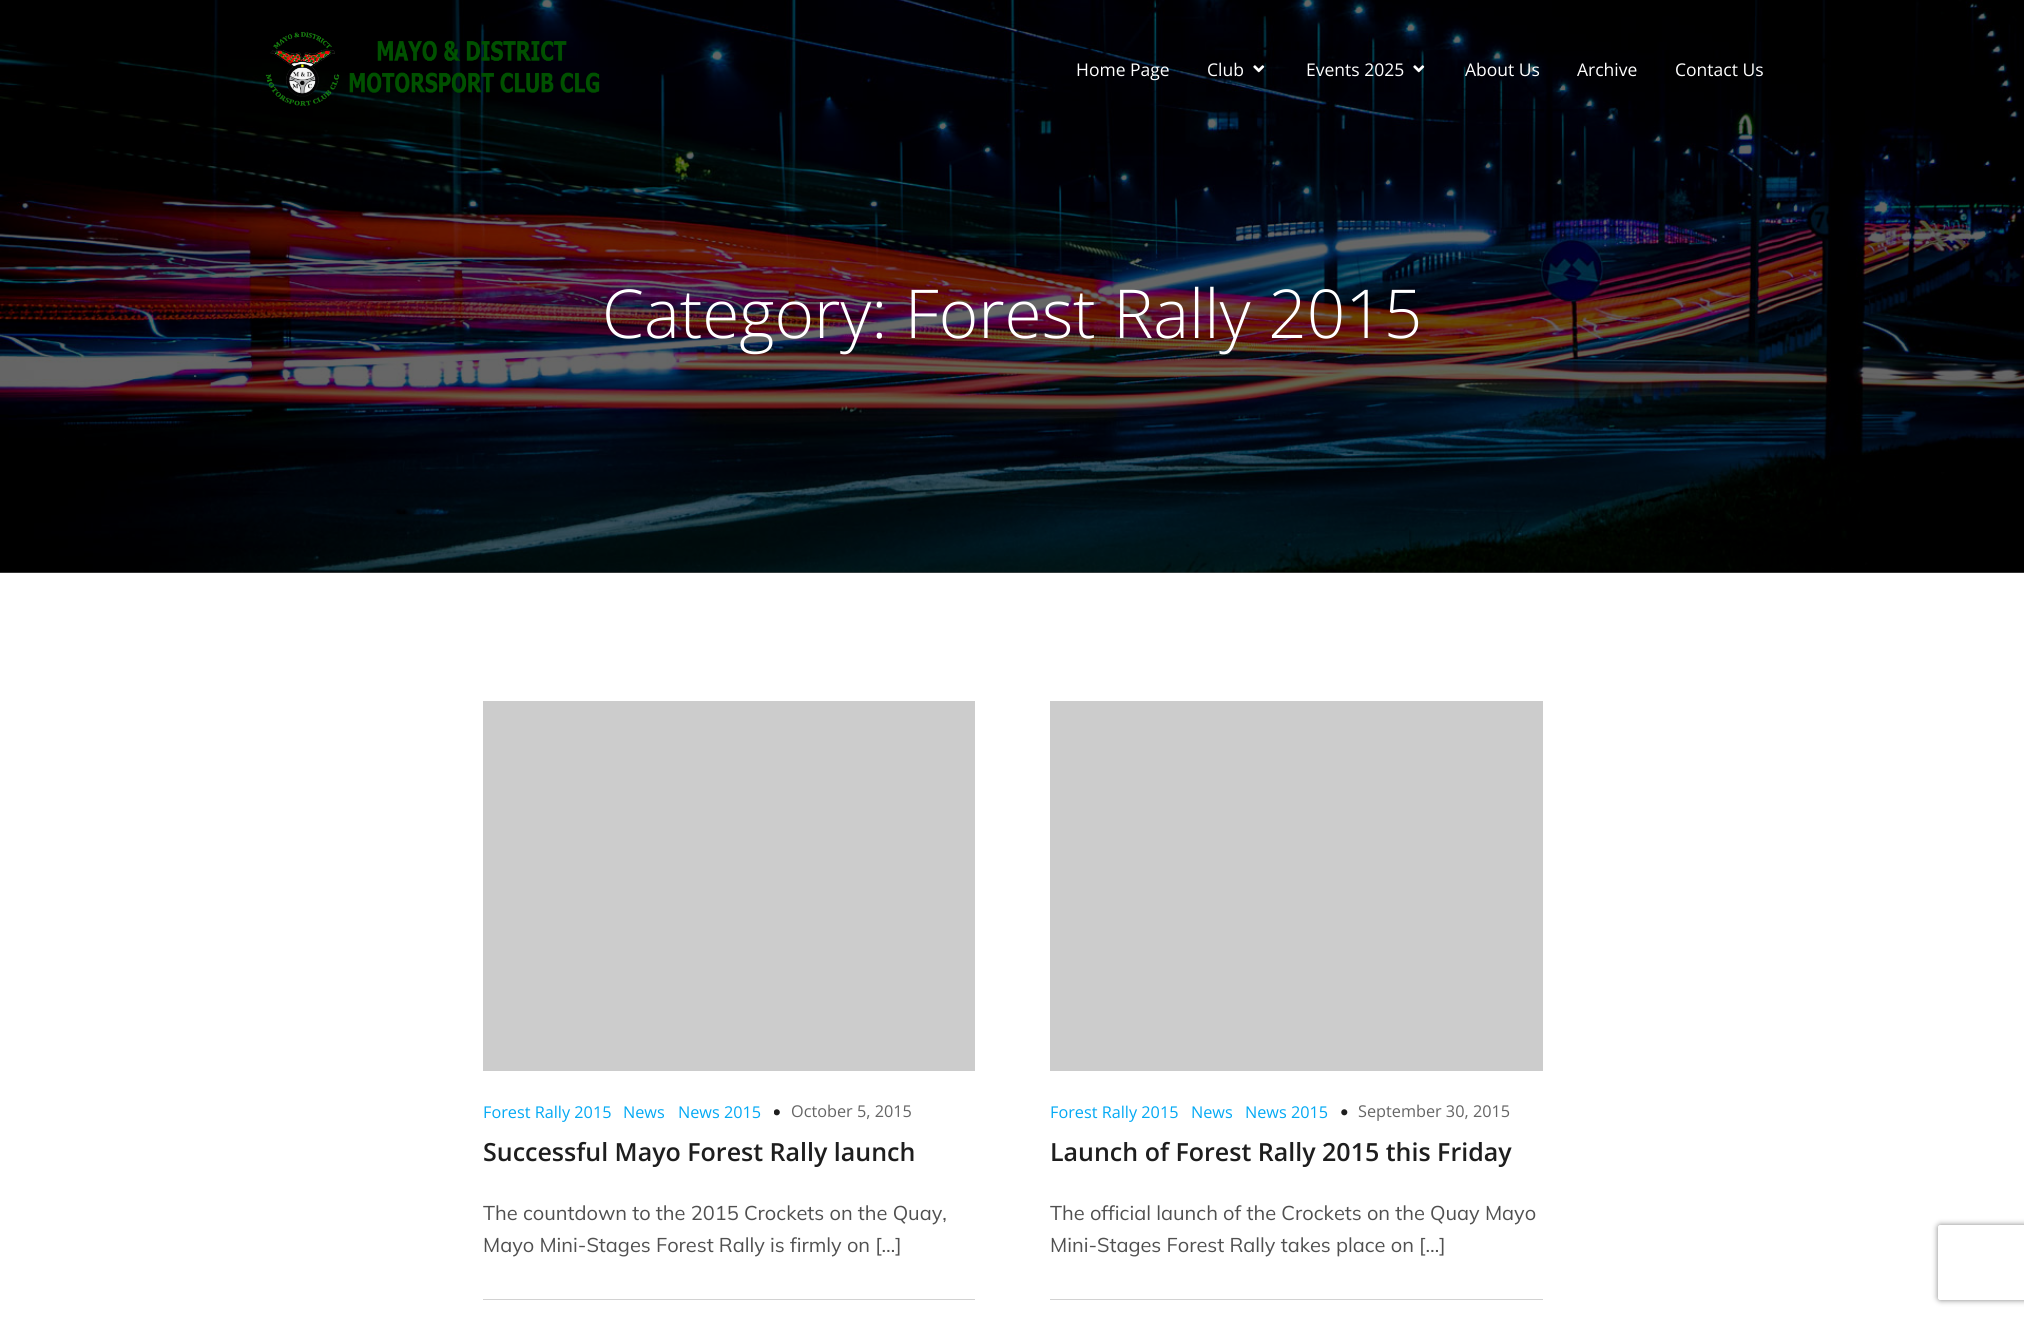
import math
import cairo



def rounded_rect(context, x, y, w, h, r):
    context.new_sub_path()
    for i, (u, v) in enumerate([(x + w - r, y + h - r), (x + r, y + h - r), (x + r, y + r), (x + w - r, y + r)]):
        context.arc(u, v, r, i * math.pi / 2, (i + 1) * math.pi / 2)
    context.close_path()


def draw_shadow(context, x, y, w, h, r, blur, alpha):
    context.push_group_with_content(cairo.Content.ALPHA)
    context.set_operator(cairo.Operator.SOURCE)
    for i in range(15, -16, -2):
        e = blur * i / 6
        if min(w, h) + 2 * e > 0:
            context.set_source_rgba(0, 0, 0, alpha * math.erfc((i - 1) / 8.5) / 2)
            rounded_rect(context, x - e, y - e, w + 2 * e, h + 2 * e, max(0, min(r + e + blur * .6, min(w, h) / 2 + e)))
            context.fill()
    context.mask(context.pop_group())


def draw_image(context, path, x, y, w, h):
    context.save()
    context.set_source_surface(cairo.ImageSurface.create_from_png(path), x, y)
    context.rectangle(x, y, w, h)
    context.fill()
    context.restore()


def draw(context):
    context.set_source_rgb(1, 1, 1)
    context.paint()
    context.set_source_rgb(102 / 255, 102 / 255, 102 / 255)
    context.rectangle(0, 572, 2024, 1)
    context.fill()
    draw_image(context, "images/4.png", 0, 0, 2024, 573)
    draw_image(context, "images/1.png", 265, 32, 335, 74)
    draw_image(context, "images/2.png", 1253, 65, 12, 8)
    draw_image(context, "images/3.png", 1413, 65, 12, 8)
    context.set_source_rgb(204 / 255, 204 / 255, 204 / 255)
    context.rectangle(483, 701, 492, 370)
    context.fill()
    draw_image(context, "images/5.png", 774, 1109, 6, 7)
    context.set_source_rgb(210 / 255, 210 / 255, 210 / 255)
    context.rectangle(483, 1299, 492, 1)
    context.fill()
    context.set_source_rgb(204 / 255, 204 / 255, 204 / 255)
    context.rectangle(1050, 701, 493, 370)
    context.fill()
    draw_image(context, "images/6.png", 1341, 1109, 7, 7)
    context.set_source_rgb(210 / 255, 210 / 255, 210 / 255)
    context.rectangle(1050, 1299, 493, 1)
    context.fill()
    context.save()
    context.set_fill_rule(cairo.FillRule.EVEN_ODD)
    context.new_path()
    context.move_to(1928, 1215)
    context.line_to(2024, 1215)
    context.line_to(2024, 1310)
    context.line_to(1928, 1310)
    context.close_path()
    context.move_to(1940.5, 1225)
    context.line_to(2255.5, 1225)
    context.curve_to(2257, 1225, 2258, 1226, 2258, 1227.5)
    context.line_to(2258, 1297.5)
    context.curve_to(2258, 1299, 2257, 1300, 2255.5, 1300)
    context.line_to(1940.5, 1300)
    context.curve_to(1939, 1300, 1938, 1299, 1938, 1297.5)
    context.line_to(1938, 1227.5)
    context.curve_to(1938, 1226, 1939, 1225, 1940.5, 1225)
    context.close_path()
    context.clip()
    context.set_source_rgb(128 / 255, 128 / 255, 128 / 255)
    draw_shadow(context, 1938, 1225, 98, 75, 2.5, 3, 1)
    context.restore()
    context.select_font_face("Open Sans")
    context.set_font_size(17.5)
    context.set_source_rgb(1, 1, 1)
    context.move_to(1076, 76)
    context.show_text("Home Page")
    context.move_to(1207, 76)
    context.show_text("Club")
    context.move_to(1306, 76)
    context.show_text("Events 2025")
    context.move_to(1465, 76)
    context.show_text("About Us")
    context.move_to(1577, 76)
    context.show_text("Archive")
    context.move_to(1675, 76)
    context.show_text("Contact Us")
    context.select_font_face("Open Sans Light")
    context.set_font_size(67.5)
    context.move_to(602, 338)
    context.show_text("Category: Forest Rally 2015")
    context.select_font_face("Open Sans")
    context.set_font_size(16.25)
    context.set_source_rgb(3 / 255, 169 / 255, 244 / 255)
    context.move_to(483, 1118)
    context.show_text("Forest Rally 2015")
    context.move_to(623, 1118)
    context.show_text("News")
    context.move_to(678, 1118)
    context.show_text("News 2015")
    context.set_source_rgb(101 / 255, 101 / 255, 101 / 255)
    context.move_to(791, 1117)
    context.show_text("October 5, 2015")
    context.select_font_face("Open Sans SemiBold")
    context.set_font_size(25)
    context.set_source_rgb(30 / 255, 30 / 255, 30 / 255)
    context.move_to(483, 1161)
    context.show_text("Successful Mayo Forest Rally launch")
    context.select_font_face("Mulish ExtraLight")
    context.set_font_size(20)
    context.set_source_rgb(80 / 255, 80 / 255, 80 / 255)
    context.move_to(483, 1220)
    context.show_text("The countdown to the 2015 Crockets on the Quay,")
    context.move_to(483, 1252)
    context.show_text("Mayo Mini-Stages Forest Rally is firmly on […]")
    context.select_font_face("Open Sans")
    context.set_font_size(16.25)
    context.set_source_rgb(3 / 255, 169 / 255, 244 / 255)
    context.move_to(1050, 1118)
    context.show_text("Forest Rally 2015")
    context.move_to(1191, 1118)
    context.show_text("News")
    context.move_to(1245, 1118)
    context.show_text("News 2015")
    context.set_source_rgb(101 / 255, 101 / 255, 101 / 255)
    context.move_to(1358, 1117)
    context.show_text("September 30, 2015")
    context.select_font_face("Open Sans SemiBold")
    context.set_font_size(25)
    context.set_source_rgb(30 / 255, 30 / 255, 30 / 255)
    context.move_to(1050, 1161)
    context.show_text("Launch of Forest Rally 2015 this Friday")
    context.select_font_face("Mulish ExtraLight")
    context.set_font_size(20)
    context.set_source_rgb(80 / 255, 80 / 255, 80 / 255)
    context.move_to(1050, 1220)
    context.show_text("The official launch of the Crockets on the Quay Mayo")
    context.move_to(1050, 1252)
    context.show_text("Mini-Stages Forest Rally takes place on […]")


surface = cairo.ImageSurface(cairo.Format.RGB24, 2024, 1317)
context = cairo.Context(surface)
options = cairo.FontOptions()
options.set_hint_metrics(cairo.HintMetrics.OFF)
options.set_hint_style(cairo.HintStyle.NONE)
context.set_font_options(options)
context.set_miter_limit(4)
draw(context)
surface.write_to_png("out.png")
